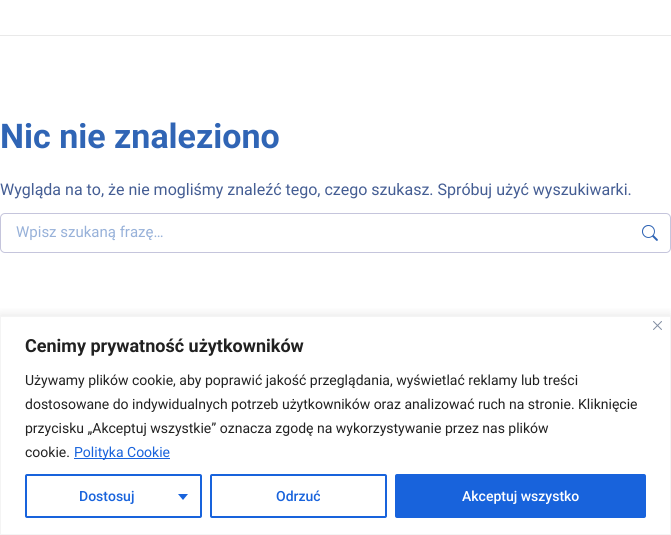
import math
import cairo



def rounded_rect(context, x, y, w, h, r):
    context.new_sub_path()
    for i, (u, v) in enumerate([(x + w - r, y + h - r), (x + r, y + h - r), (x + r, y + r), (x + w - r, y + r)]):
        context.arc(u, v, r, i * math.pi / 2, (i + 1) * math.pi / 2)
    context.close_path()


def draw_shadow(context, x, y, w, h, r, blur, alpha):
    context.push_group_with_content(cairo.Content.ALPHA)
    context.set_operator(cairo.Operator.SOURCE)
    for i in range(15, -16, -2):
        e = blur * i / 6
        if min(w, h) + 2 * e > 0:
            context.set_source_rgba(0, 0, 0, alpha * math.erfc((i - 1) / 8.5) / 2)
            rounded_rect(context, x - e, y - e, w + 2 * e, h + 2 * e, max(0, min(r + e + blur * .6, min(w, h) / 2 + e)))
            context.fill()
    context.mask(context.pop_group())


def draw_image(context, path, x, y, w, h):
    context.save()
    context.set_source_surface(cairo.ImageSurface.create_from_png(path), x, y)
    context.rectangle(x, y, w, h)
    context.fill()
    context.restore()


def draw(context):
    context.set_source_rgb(1, 1, 1)
    context.paint()
    context.set_source_rgb(233 / 255, 233 / 255, 233 / 255)
    context.rectangle(0, 35, 671, 1)
    context.fill()
    rounded_rect(context, 0.5, 213.5, 670, 39, 4.5)
    context.set_source_rgb(197 / 255, 197 / 255, 220 / 255)
    context.set_line_width(1)
    context.stroke()
    draw_image(context, "images/1.png", 642, 225, 16, 16)
    context.save()
    context.rectangle(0, 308, 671, 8)
    context.clip()
    context.set_source_rgb(172 / 255, 171 / 255, 171 / 255)
    draw_shadow(context, 0, 315, 671, 219, 0, 5, 0.3)
    context.restore()
    context.rectangle(0.5, 316.5, 670, 218)
    context.set_source_rgb(244 / 255, 244 / 255, 244 / 255)
    context.stroke()
    draw_image(context, "images/2.png", 653, 321, 9, 9)
    context.set_source_rgb(24 / 255, 99 / 255, 220 / 255)
    context.rectangle(74, 458, 96, 1)
    context.fill()
    rounded_rect(context, 26, 475, 175, 42, 1)
    context.set_line_width(2)
    context.stroke()
    context.new_path()
    context.move_to(178, 494)
    context.line_to(188, 494)
    context.line_to(183, 500)
    context.close_path()
    context.fill()
    rounded_rect(context, 211, 475, 175, 42, 1)
    context.stroke()
    rounded_rect(context, 396, 475, 249, 42, 1)
    context.fill_preserve()
    context.stroke()
    context.select_font_face("Roboto", cairo.FontSlant.NORMAL, cairo.FontWeight.BOLD)
    context.set_font_size(34)
    context.set_source_rgb(48 / 255, 101 / 255, 181 / 255)
    context.move_to(0, 148)
    context.show_text("Nic nie znaleziono")
    context.select_font_face("Roboto")
    context.set_font_size(16)
    context.set_source_rgb(68 / 255, 93 / 255, 147 / 255)
    context.move_to(0, 195)
    context.show_text("Wygląda na to, że nie mogliśmy znaleźć tego, czego szukasz. Spróbuj użyć wyszukiwarki.")
    context.set_font_size(15)
    context.set_source_rgb(151 / 255, 177 / 255, 217 / 255)
    context.move_to(16, 237)
    context.show_text("Wpisz szukaną frazę…")
    context.select_font_face("Roboto", cairo.FontSlant.NORMAL, cairo.FontWeight.BOLD)
    context.set_font_size(18)
    context.set_source_rgb(33 / 255, 33 / 255, 33 / 255)
    context.move_to(25, 352)
    context.show_text("Cenimy prywatność użytkowników")
    context.select_font_face("Roboto")
    context.set_font_size(14)
    context.move_to(25, 385)
    context.show_text("Używamy plików cookie, aby poprawić jakość przeglądania, wyświetlać reklamy lub treści")
    context.move_to(25, 409)
    context.show_text("dostosowane do indywidualnych potrzeb użytkowników oraz analizować ruch na stronie. Kliknięcie")
    context.move_to(25, 433)
    context.show_text("przycisku „Akceptuj wszystkie” oznacza zgodę na wykorzystywanie przez nas plików")
    context.move_to(25, 457)
    context.show_text("cookie.")
    context.set_source_rgb(24 / 255, 99 / 255, 220 / 255)
    context.move_to(74, 457)
    context.show_text("Polityka Cookie")
    context.select_font_face("Roboto Medium")
    context.move_to(79, 501)
    context.show_text("Dostosuj")
    context.move_to(276, 501)
    context.show_text("Odrzuć")
    context.set_source_rgb(1, 1, 1)
    context.move_to(462, 501)
    context.show_text("Akceptuj wszystko")


surface = cairo.ImageSurface(cairo.Format.RGB24, 671, 535)
context = cairo.Context(surface)
options = cairo.FontOptions()
options.set_hint_metrics(cairo.HintMetrics.OFF)
options.set_hint_style(cairo.HintStyle.NONE)
context.set_font_options(options)
context.set_miter_limit(4)
draw(context)
surface.write_to_png("out.png")
